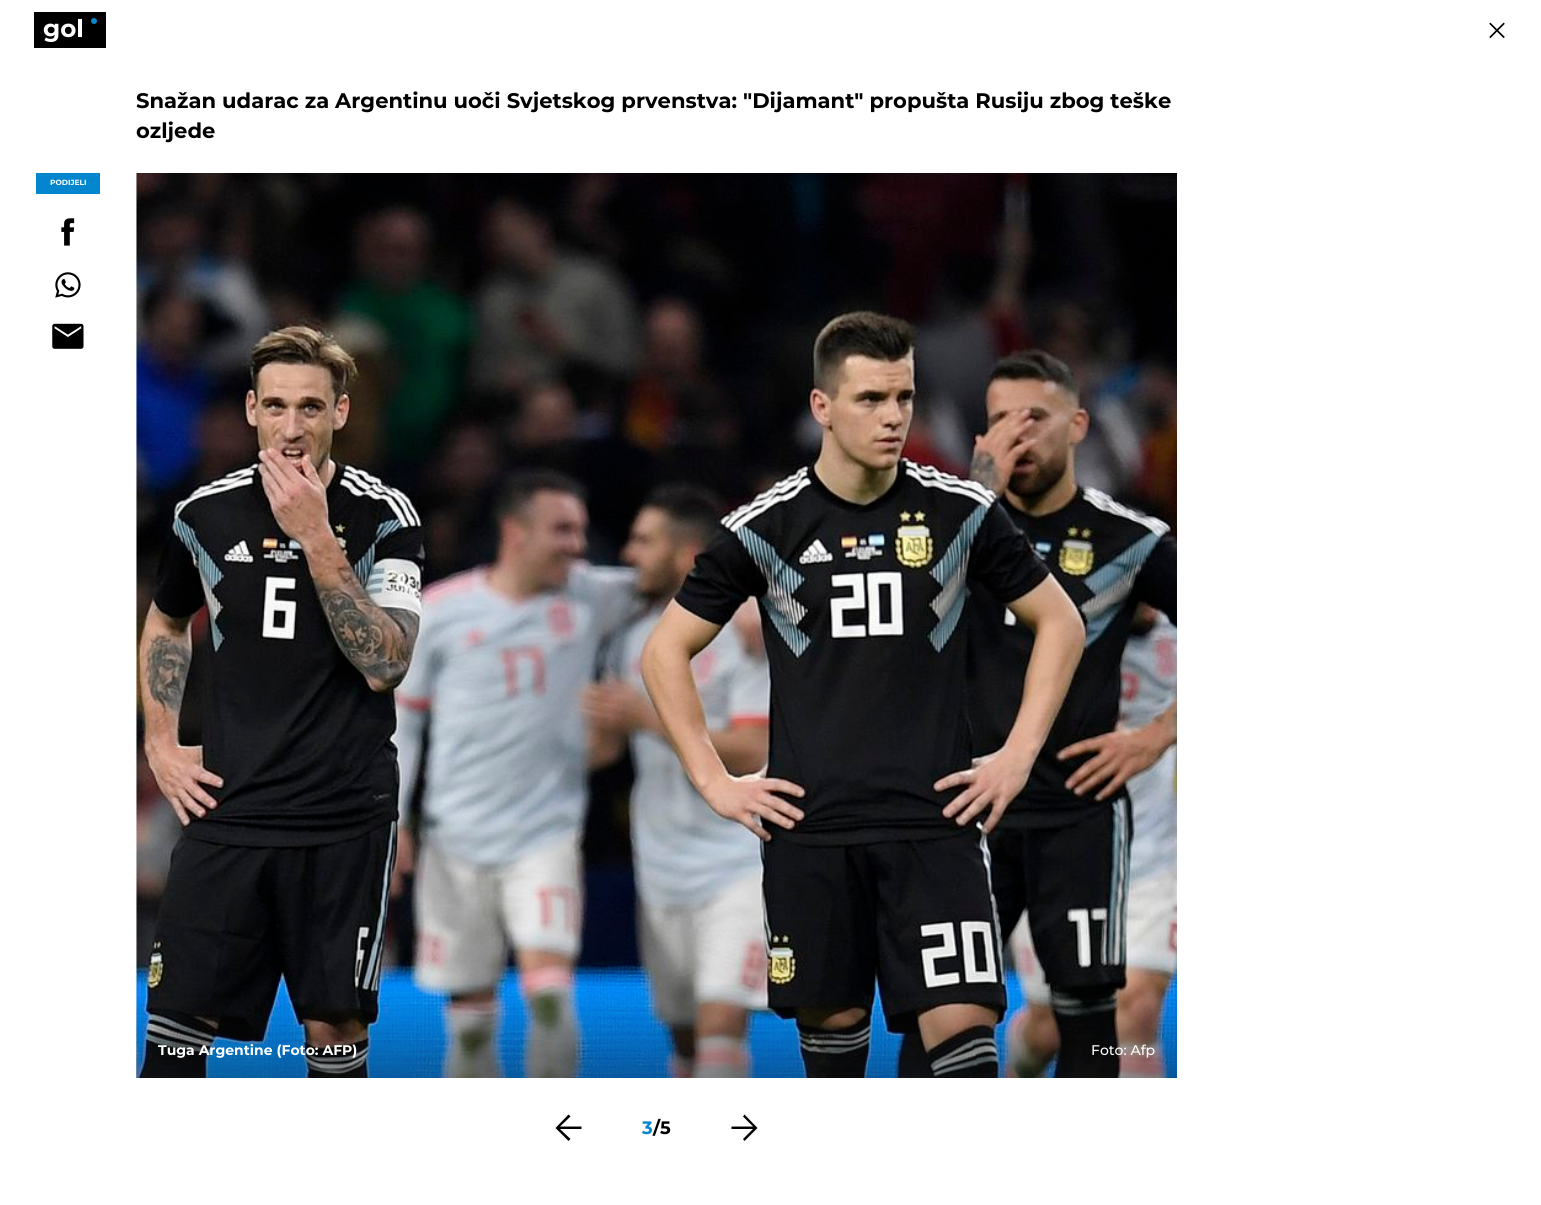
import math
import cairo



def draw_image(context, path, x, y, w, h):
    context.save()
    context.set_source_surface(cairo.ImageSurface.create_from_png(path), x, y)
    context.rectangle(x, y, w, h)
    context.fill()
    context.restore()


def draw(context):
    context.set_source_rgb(1, 1, 1)
    context.paint()
    draw_image(context, "images/1.png", 34, 12, 72, 36)
    draw_image(context, "images/2.png", 1489, 22, 16, 17)
    context.set_source_rgb(4 / 255, 134 / 255, 207 / 255)
    context.rectangle(36, 173, 64, 21)
    context.fill()
    draw_image(context, "images/3.png", 61, 218, 14, 28)
    draw_image(context, "images/4.png", 55, 272, 26, 26)
    draw_image(context, "images/5.png", 52, 323, 32, 26)
    draw_image(context, "images/6.png", 136, 173, 1041, 905)
    gradient = cairo.LinearGradient(657, 1078, 657, 980)
    gradient.add_color_stop_rgba(0, 20 / 255, 20 / 255, 20 / 255, 0.4)
    gradient.add_color_stop_rgba(1, 20 / 255, 20 / 255, 20 / 255, 0)
    context.set_source(gradient)
    context.rectangle(136, 985, 1041, 93)
    context.fill()
    context.set_source_rgb(0, 0, 0)
    context.new_path()
    context.move_to(568.5, 1141)
    context.line_to(570.5, 1139)
    context.line_to(560, 1129)
    context.line_to(581.5, 1129)
    context.line_to(581.5, 1126.5)
    context.line_to(560, 1126.5)
    context.line_to(570.5, 1116.5)
    context.line_to(568.5, 1114.5)
    context.line_to(555.5, 1128)
    context.close_path()
    context.fill()
    context.new_path()
    context.move_to(744.5, 1141)
    context.line_to(743, 1139)
    context.line_to(753, 1129)
    context.line_to(731.5, 1129)
    context.line_to(731.5, 1126.5)
    context.line_to(753, 1126.5)
    context.line_to(743, 1116.5)
    context.line_to(744.5, 1114.5)
    context.line_to(757.5, 1128)
    context.close_path()
    context.fill()
    context.select_font_face("Montserrat", cairo.FontSlant.NORMAL, cairo.FontWeight.BOLD)
    context.set_font_size(21.1)
    context.move_to(136, 108)
    context.show_text("Snažan udarac za Argentinu uoči Svjetskog prvenstva: \"Dijamant\" propušta Rusiju zbog teške")
    context.move_to(136, 138)
    context.show_text("ozljede")
    context.set_font_size(7.5)
    context.set_source_rgb(1, 1, 1)
    context.move_to(50, 185)
    context.show_text("PODIJELI")
    context.set_font_size(14)
    context.move_to(158, 1055)
    context.show_text("Tuga Argentine (Foto: AFP)")
    context.select_font_face("Montserrat Medium")
    context.move_to(1091, 1055)
    context.show_text("Foto: Afp")
    context.select_font_face("Montserrat", cairo.FontSlant.NORMAL, cairo.FontWeight.BOLD)
    context.set_font_size(18)
    context.set_source_rgb(4 / 255, 134 / 255, 207 / 255)
    context.move_to(642, 1134)
    context.show_text("3")
    context.set_source_rgb(0, 0, 0)
    context.move_to(653, 1134)
    context.show_text("/5")


surface = cairo.ImageSurface(cairo.Format.RGB24, 1541, 1205)
context = cairo.Context(surface)
options = cairo.FontOptions()
options.set_hint_metrics(cairo.HintMetrics.OFF)
options.set_hint_style(cairo.HintStyle.NONE)
context.set_font_options(options)
context.set_miter_limit(4)
draw(context)
surface.write_to_png("out.png")
